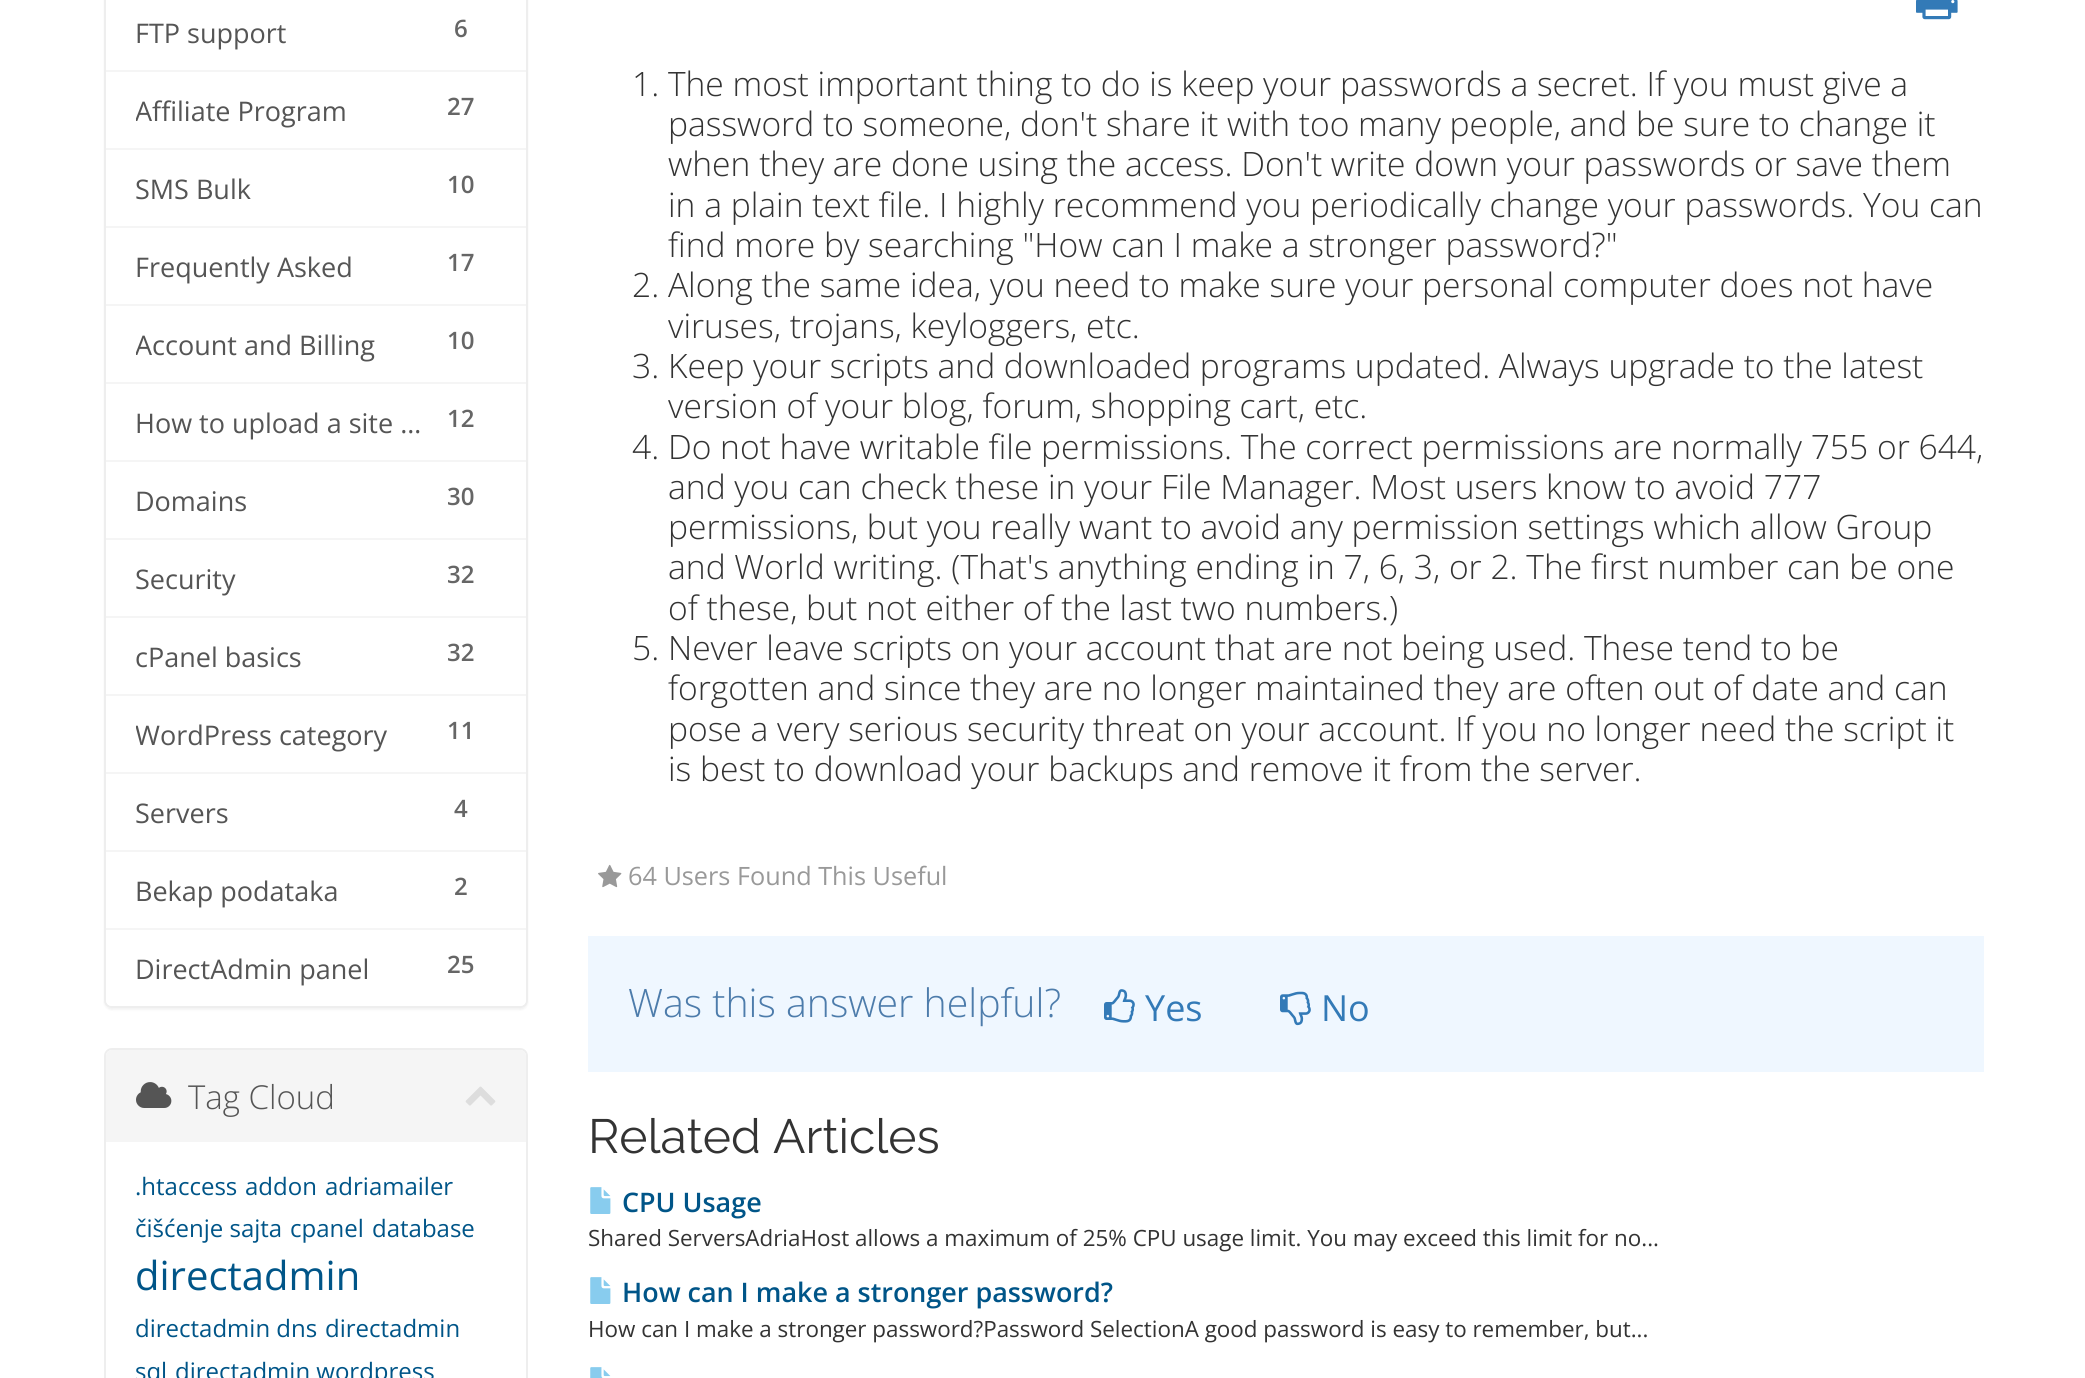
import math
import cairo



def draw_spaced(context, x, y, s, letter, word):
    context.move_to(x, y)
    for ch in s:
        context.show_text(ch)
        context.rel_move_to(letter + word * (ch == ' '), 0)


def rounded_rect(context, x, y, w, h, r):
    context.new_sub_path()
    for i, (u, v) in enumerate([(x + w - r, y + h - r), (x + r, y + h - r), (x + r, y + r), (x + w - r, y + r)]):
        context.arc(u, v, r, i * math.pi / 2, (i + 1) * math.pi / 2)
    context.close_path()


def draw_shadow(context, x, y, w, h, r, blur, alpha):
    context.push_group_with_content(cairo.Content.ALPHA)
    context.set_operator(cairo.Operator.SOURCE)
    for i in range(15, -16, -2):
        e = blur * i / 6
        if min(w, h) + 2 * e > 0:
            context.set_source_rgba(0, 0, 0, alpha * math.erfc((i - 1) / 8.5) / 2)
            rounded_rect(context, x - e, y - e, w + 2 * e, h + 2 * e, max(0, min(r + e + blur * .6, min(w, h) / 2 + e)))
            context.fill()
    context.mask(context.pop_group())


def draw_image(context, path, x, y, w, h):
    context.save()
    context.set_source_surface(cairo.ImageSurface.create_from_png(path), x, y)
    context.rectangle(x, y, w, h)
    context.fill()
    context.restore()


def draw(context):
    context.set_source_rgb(1, 1, 1)
    context.paint()
    context.set_source_rgb(0, 0, 0)
    draw_shadow(context, 104, -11, 424, 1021, 8, 1, 0.05)
    context.set_source_rgb(1, 1, 1)
    rounded_rect(context, 105, -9, 422, 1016, 7)
    context.fill_preserve()
    context.set_source_rgb(238 / 255, 238 / 255, 238 / 255)
    context.stroke()
    context.set_source_rgb(245 / 255, 245 / 255, 245 / 255)
    context.rectangle(106, 70, 420, 2)
    context.fill()
    context.rectangle(106, 148, 420, 2)
    context.fill()
    context.rectangle(106, 226, 420, 2)
    context.fill()
    context.rectangle(106, 304, 420, 2)
    context.fill()
    context.rectangle(106, 382, 420, 2)
    context.fill()
    context.rectangle(106, 460, 420, 2)
    context.fill()
    context.rectangle(106, 538, 420, 2)
    context.fill()
    context.rectangle(106, 616, 420, 2)
    context.fill()
    context.rectangle(106, 694, 420, 2)
    context.fill()
    context.rectangle(106, 772, 420, 2)
    context.fill()
    context.rectangle(106, 850, 420, 2)
    context.fill()
    context.set_source_rgb(1, 1, 1)
    context.new_path()
    context.move_to(106, 928)
    context.line_to(526, 928)
    context.line_to(526, 1000)
    context.curve_to(526, 1003.5, 523.5, 1006, 520, 1006)
    context.line_to(112, 1006)
    context.curve_to(108.5, 1006, 106, 1003.5, 106, 1000)
    context.close_path()
    context.fill()
    context.set_source_rgb(245 / 255, 245 / 255, 245 / 255)
    context.rectangle(106, 928, 420, 2)
    context.fill()
    draw_image(context, "images/1.png", 1916, 0, 42, 20)
    draw_image(context, "images/2.png", 598, 864, 24, 24)
    context.set_source_rgb(239 / 255, 247 / 255, 1)
    context.rectangle(588, 936, 1396, 136)
    context.fill()
    draw_image(context, "images/3.png", 1104, 989, 31, 34)
    draw_image(context, "images/4.png", 1280, 991, 31, 35)
    draw_image(context, "images/5.png", 590, 1187, 21, 27)
    draw_image(context, "images/5.png", 590, 1277, 21, 27)
    draw_image(context, "images/6.png", 590, 1367, 21, 11)
    rounded_rect(context, 105, 1049, 422, 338, 7)
    context.set_source_rgb(238 / 255, 238 / 255, 238 / 255)
    context.stroke()
    context.set_source_rgb(245 / 255, 245 / 255, 245 / 255)
    context.new_path()
    context.move_to(112, 1050)
    context.line_to(520, 1050)
    context.curve_to(523.5, 1050, 526, 1052.5, 526, 1056)
    context.line_to(526, 1142)
    context.line_to(106, 1142)
    context.line_to(106, 1056)
    context.curve_to(106, 1052.5, 108.5, 1050, 112, 1050)
    context.close_path()
    context.fill()
    draw_image(context, "images/7.png", 136, 1082, 36, 26)
    draw_image(context, "images/8.png", 465, 1086, 31, 20)
    context.select_font_face("Open Sans")
    context.set_font_size(27)
    context.set_source_rgb(85 / 255, 85 / 255, 85 / 255)
    context.move_to(135, 43)
    context.show_text("FTP support")
    context.select_font_face("Open Sans SemiBold")
    context.set_font_size(24)
    context.set_source_rgb(102 / 255, 102 / 255, 102 / 255)
    context.move_to(454, 37)
    context.show_text("6")
    context.save()
    context.rectangle(136, 86, 288, 48)
    context.clip()
    context.select_font_face("Open Sans")
    context.set_font_size(27)
    context.set_source_rgb(85 / 255, 85 / 255, 85 / 255)
    context.move_to(135, 121)
    context.show_text("Affiliate Program")
    context.restore()
    context.move_to(447, 115)
    context.show_text("27")
    context.select_font_face("Open Sans")
    context.set_font_size(27)
    context.set_source_rgb(85 / 255, 85 / 255, 85 / 255)
    context.move_to(135, 199)
    context.show_text("SMS Bulk")
    context.select_font_face("Open Sans SemiBold")
    context.set_font_size(24)
    context.set_source_rgb(102 / 255, 102 / 255, 102 / 255)
    context.move_to(447, 193)
    context.show_text("10")
    context.select_font_face("Open Sans")
    context.set_font_size(27)
    context.set_source_rgb(85 / 255, 85 / 255, 85 / 255)
    context.move_to(135, 277)
    context.show_text("Frequently Asked")
    context.select_font_face("Open Sans SemiBold")
    context.set_font_size(24)
    context.set_source_rgb(102 / 255, 102 / 255, 102 / 255)
    context.move_to(447, 271)
    context.show_text("17")
    context.save()
    context.rectangle(136, 320, 288, 48)
    context.clip()
    context.select_font_face("Open Sans")
    context.set_font_size(27)
    context.set_source_rgb(85 / 255, 85 / 255, 85 / 255)
    context.move_to(135, 355)
    context.show_text("Account and Billing")
    context.restore()
    context.move_to(447, 349)
    context.show_text("10")
    context.select_font_face("Open Sans")
    context.set_font_size(27)
    context.set_source_rgb(85 / 255, 85 / 255, 85 / 255)
    context.move_to(135, 433)
    context.show_text("How to upload a site …")
    context.select_font_face("Open Sans SemiBold")
    context.set_font_size(24)
    context.set_source_rgb(102 / 255, 102 / 255, 102 / 255)
    context.move_to(447, 427)
    context.show_text("12")
    context.select_font_face("Open Sans")
    context.set_font_size(27)
    context.set_source_rgb(85 / 255, 85 / 255, 85 / 255)
    context.move_to(135, 511)
    context.show_text("Domains")
    context.select_font_face("Open Sans SemiBold")
    context.set_font_size(24)
    context.set_source_rgb(102 / 255, 102 / 255, 102 / 255)
    context.move_to(447, 505)
    context.show_text("30")
    context.select_font_face("Open Sans")
    context.set_font_size(27)
    context.set_source_rgb(85 / 255, 85 / 255, 85 / 255)
    context.move_to(135, 589)
    context.show_text("Security")
    context.select_font_face("Open Sans SemiBold")
    context.set_font_size(24)
    context.set_source_rgb(102 / 255, 102 / 255, 102 / 255)
    context.move_to(447, 583)
    context.show_text("32")
    context.select_font_face("Open Sans")
    context.set_font_size(27)
    context.set_source_rgb(85 / 255, 85 / 255, 85 / 255)
    context.move_to(135, 667)
    context.show_text("cPanel basics")
    context.select_font_face("Open Sans SemiBold")
    context.set_font_size(24)
    context.set_source_rgb(102 / 255, 102 / 255, 102 / 255)
    context.move_to(447, 661)
    context.show_text("32")
    context.save()
    context.rectangle(136, 710, 288, 48)
    context.clip()
    context.select_font_face("Open Sans")
    context.set_font_size(27)
    context.set_source_rgb(85 / 255, 85 / 255, 85 / 255)
    context.move_to(135, 745)
    context.show_text("WordPress category")
    context.restore()
    context.move_to(447, 739)
    context.show_text("11")
    context.select_font_face("Open Sans")
    context.set_font_size(27)
    context.set_source_rgb(85 / 255, 85 / 255, 85 / 255)
    context.move_to(135, 823)
    context.show_text("Servers")
    context.select_font_face("Open Sans SemiBold")
    context.set_font_size(24)
    context.set_source_rgb(102 / 255, 102 / 255, 102 / 255)
    context.move_to(454, 817)
    context.show_text("4")
    context.select_font_face("Open Sans")
    context.set_font_size(27)
    context.set_source_rgb(85 / 255, 85 / 255, 85 / 255)
    context.move_to(135, 901)
    context.show_text("Bekap podataka")
    context.select_font_face("Open Sans SemiBold")
    context.set_font_size(24)
    context.set_source_rgb(102 / 255, 102 / 255, 102 / 255)
    context.move_to(454, 895)
    context.show_text("2")
    context.select_font_face("Open Sans")
    context.set_font_size(27)
    context.set_source_rgb(85 / 255, 85 / 255, 85 / 255)
    context.move_to(135, 979)
    context.show_text("DirectAdmin panel")
    context.select_font_face("Open Sans SemiBold")
    context.set_font_size(24)
    context.set_source_rgb(102 / 255, 102 / 255, 102 / 255)
    context.move_to(447, 973)
    context.show_text("25")
    context.select_font_face("Open Sans Light")
    context.set_font_size(33.6)
    context.set_source_rgb(51 / 255, 51 / 255, 51 / 255)
    context.move_to(632, 96)
    context.show_text("1. The most important thing to do is keep your passwords a secret. If you must give a")
    context.move_to(668, 136)
    context.show_text("password to someone, don't share it with too many people, and be sure to change it")
    context.move_to(668, 176)
    context.show_text("when they are done using the access. Don't write down your passwords or save them")
    context.move_to(668, 217)
    context.show_text("in a plain text file. I highly recommend you periodically change your passwords. You can")
    context.move_to(668, 257)
    context.show_text("find more by searching \"How can I make a stronger password?\"")
    context.move_to(632, 297)
    context.show_text("2. Along the same idea, you need to make sure your personal computer does not have")
    context.move_to(668, 338)
    context.show_text("viruses, trojans, keyloggers, etc.")
    context.move_to(632, 378)
    context.show_text("3.")
    draw_spaced(context, 668, 378, "Keep your scripts and downloaded programs updated. Always upgrade to the latest", 0, -0.1)
    context.move_to(668, 418)
    context.show_text("version of your blog, forum, shopping cart, etc.")
    context.move_to(632, 459)
    context.show_text("4. Do not have writable file permissions. The correct permissions are normally 755 or 644,")
    context.move_to(668, 499)
    context.show_text("and you can check these in your File Manager. Most users know to avoid 777")
    context.move_to(668, 539)
    context.show_text("permissions, but you really want to avoid any permission settings which allow Group")
    context.move_to(668, 579)
    context.show_text("and World writing. (That's anything ending in 7, 6, 3, or 2. The first number can be one")
    context.move_to(668, 620)
    context.show_text("of these, but not either of the last two numbers.)")
    context.move_to(632, 660)
    context.show_text("5. Never leave scripts on your account that are not being used. These tend to be")
    context.move_to(668, 700)
    context.show_text("forgotten and since they are no longer maintained they are often out of date and can")
    context.move_to(668, 741)
    context.show_text("pose a very serious security threat on your account. If you no longer need the script it")
    context.move_to(668, 781)
    context.show_text("is best to download your backups and remove it from the server.")
    context.select_font_face("Open Sans")
    context.set_font_size(25.25)
    context.set_source_rgb(153 / 255, 153 / 255, 153 / 255)
    context.move_to(628, 885)
    context.show_text("64 Users Found This Useful")
    context.select_font_face("Open Sans Light")
    context.set_font_size(39.25)
    context.set_source_rgb(77 / 255, 124 / 255, 171 / 255)
    context.move_to(628, 1017)
    context.show_text("Was this answer helpful?")
    context.select_font_face("Open Sans")
    context.set_font_size(36)
    context.set_source_rgb(51 / 255, 122 / 255, 183 / 255)
    context.move_to(1145, 1021)
    context.show_text("Yes")
    context.move_to(1321, 1021)
    context.show_text("No")
    context.select_font_face("Raleway")
    context.set_font_size(48)
    context.set_source_rgb(51 / 255, 51 / 255, 51 / 255)
    context.move_to(588, 1153)
    context.show_text("Related Articles")
    context.select_font_face("Open Sans SemiBold")
    context.set_font_size(26.9)
    context.set_source_rgb(0, 85 / 255, 136 / 255)
    context.move_to(622, 1212)
    context.show_text("CPU Usage")
    context.select_font_face("Open Sans")
    context.set_font_size(22.4)
    context.set_source_rgb(51 / 255, 51 / 255, 51 / 255)
    context.move_to(588, 1246)
    context.show_text("Shared ServersAdriaHost allows a maximum of 25% CPU usage limit. You may exceed this limit for no...")
    context.select_font_face("Open Sans SemiBold")
    context.set_font_size(26.9)
    context.set_source_rgb(0, 85 / 255, 136 / 255)
    context.move_to(622, 1302)
    context.show_text("How can I make a stronger password?")
    context.select_font_face("Open Sans")
    context.set_font_size(22.4)
    context.set_source_rgb(51 / 255, 51 / 255, 51 / 255)
    context.move_to(588, 1337)
    context.show_text("How can I make a stronger password?Password SelectionA good password is easy to remember, but...")
    context.select_font_face("Open Sans Light")
    context.set_font_size(33)
    context.set_source_rgb(85 / 255, 85 / 255, 85 / 255)
    context.move_to(188, 1109)
    context.show_text("Tag Cloud")
    context.select_font_face("Open Sans")
    context.set_font_size(24)
    context.set_source_rgb(0, 85 / 255, 136 / 255)
    context.move_to(135, 1195)
    context.show_text(".htaccess")
    context.move_to(245, 1195)
    context.show_text("addon")
    context.move_to(325, 1195)
    context.show_text("adriamailer")
    context.move_to(135, 1237)
    context.show_text("čišćenje sajta")
    context.move_to(290, 1237)
    context.show_text("cpanel")
    context.move_to(372, 1237)
    context.show_text("database")
    context.set_font_size(40)
    context.move_to(135, 1290)
    context.show_text("directadmin")
    context.set_font_size(24)
    context.move_to(135, 1337)
    context.show_text("directadmin dns")
    context.move_to(325, 1337)
    context.show_text("directadmin")
    context.move_to(135, 1380)
    context.show_text("sql")
    context.move_to(175, 1380)
    context.show_text("directadmin wordpress")


surface = cairo.ImageSurface(cairo.Format.RGB24, 2085, 1378)
context = cairo.Context(surface)
options = cairo.FontOptions()
options.set_hint_metrics(cairo.HintMetrics.OFF)
options.set_hint_style(cairo.HintStyle.NONE)
context.set_font_options(options)
context.set_miter_limit(4)
draw(context)
surface.write_to_png("out.png")
